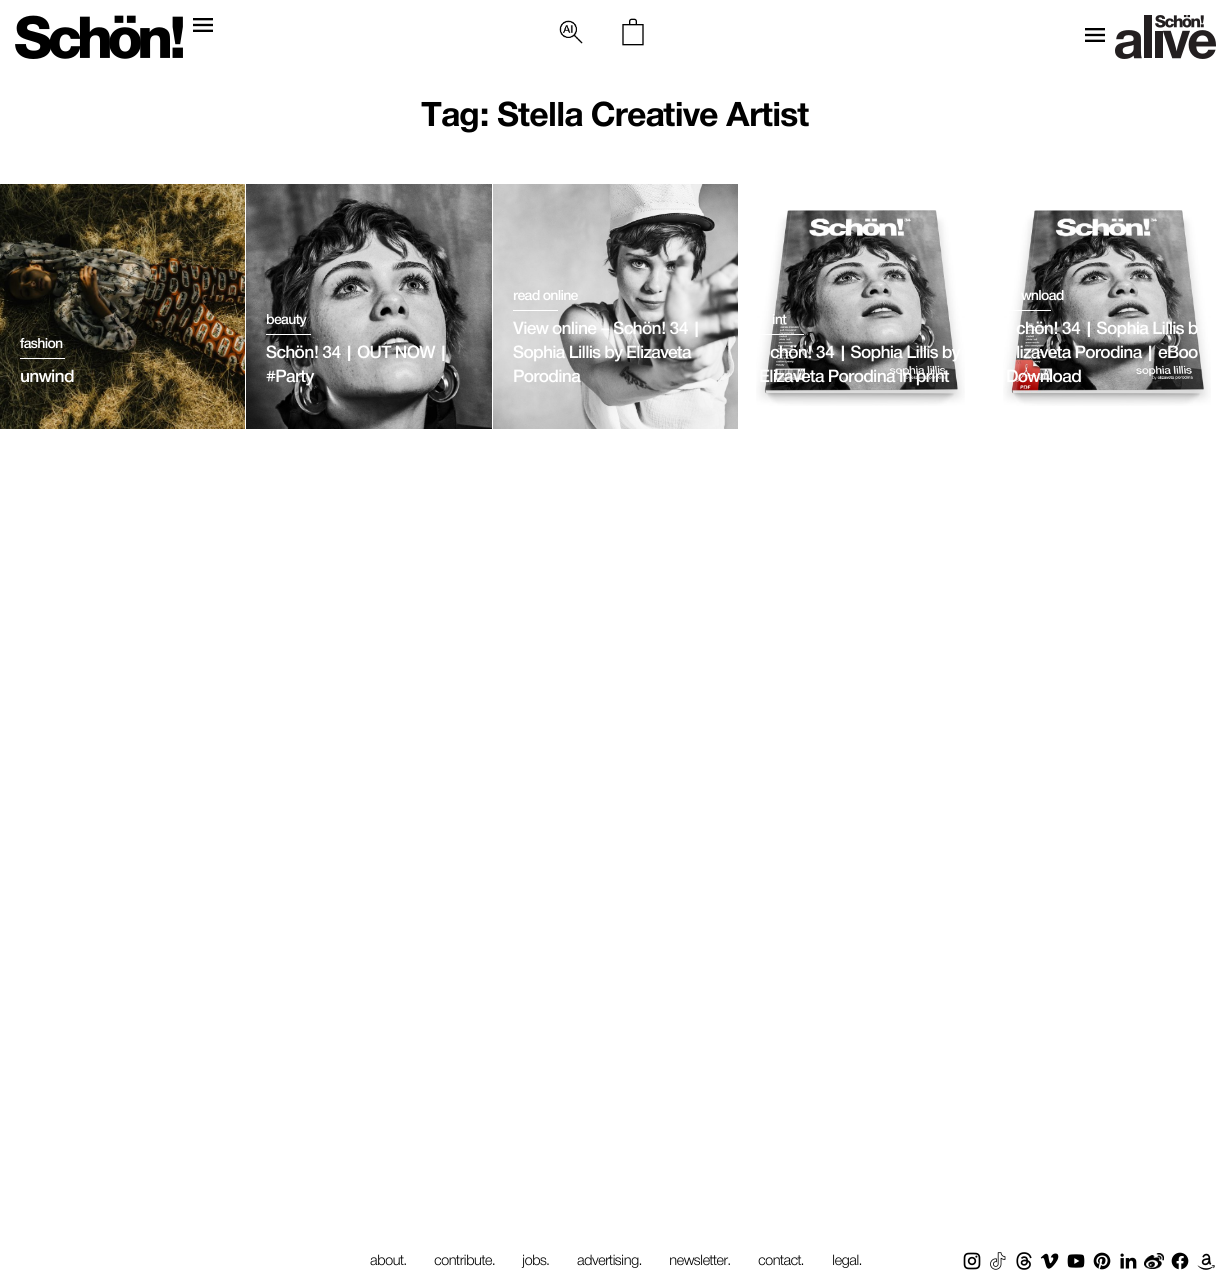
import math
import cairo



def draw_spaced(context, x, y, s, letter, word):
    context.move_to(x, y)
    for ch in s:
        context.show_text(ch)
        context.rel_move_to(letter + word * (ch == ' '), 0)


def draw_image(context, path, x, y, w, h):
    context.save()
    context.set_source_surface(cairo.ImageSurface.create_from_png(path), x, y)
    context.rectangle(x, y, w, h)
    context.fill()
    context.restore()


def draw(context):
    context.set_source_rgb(1, 1, 1)
    context.paint()
    draw_image(context, "images/1.png", 15, 15, 168, 44)
    draw_image(context, "images/2.png", 193, 18, 20, 14)
    draw_image(context, "images/3.png", 559, 20, 24, 24)
    draw_image(context, "images/4.png", 622, 18, 22, 28)
    draw_image(context, "images/2.png", 1085, 28, 20, 14)
    draw_image(context, "images/5.png", 1115, 15, 101, 44)
    draw_image(context, "images/6.png", 0, 184, 245, 245)
    context.set_source_rgb(1, 1, 1)
    context.rectangle(20, 358, 45, 1)
    context.fill()
    draw_image(context, "images/7.png", 246, 184, 246, 245)
    context.rectangle(266, 334, 45, 1)
    context.fill()
    draw_image(context, "images/8.png", 493, 184, 245, 245)
    context.rectangle(513, 310, 45, 1)
    context.fill()
    draw_image(context, "images/9.png", 756, 210, 209, 196)
    context.rectangle(759, 334, 45, 1)
    context.fill()
    draw_image(context, "images/10.png", 1003, 210, 208, 196)
    context.rectangle(1006, 310, 45, 1)
    context.fill()
    draw_image(context, "images/11.png", 963, 1252, 18, 18)
    draw_image(context, "images/12.png", 990, 1252, 16, 18)
    draw_image(context, "images/13.png", 1016, 1252, 16, 18)
    draw_image(context, "images/14.png", 1040, 1253, 19, 16)
    draw_image(context, "images/15.png", 1067, 1254, 18, 14)
    draw_image(context, "images/16.png", 1093, 1252, 18, 18)
    draw_image(context, "images/17.png", 1120, 1253, 17, 16)
    draw_image(context, "images/18.png", 1144, 1253, 20, 16)
    draw_image(context, "images/19.png", 1171, 1252, 18, 18)
    draw_image(context, "images/20.png", 1197, 1253, 18, 17)
    context.select_font_face("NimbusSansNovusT", cairo.FontSlant.NORMAL, cairo.FontWeight.BOLD)
    context.set_font_size(36)
    context.set_source_rgb(0, 0, 0)
    draw_spaced(context, 421, 126, "Tag: Stella Creative Artist", -0.75, 0)
    context.select_font_face("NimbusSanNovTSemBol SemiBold")
    context.set_font_size(15)
    context.set_source_rgb(1, 1, 1)
    draw_spaced(context, 20, 348, "fashion", -0.75, 0)
    context.set_font_size(18.5)
    draw_spaced(context, 20, 382, "unwind", -0.75, 0)
    context.set_font_size(15)
    draw_spaced(context, 266, 324, "beauty", -0.75, 0)
    context.set_font_size(18.5)
    draw_spaced(context, 266, 358, "Schön! 34 | OUT NOW |", -0.75, 0)
    draw_spaced(context, 266, 382, "#Party", -0.75, 0)
    context.set_font_size(15)
    draw_spaced(context, 513, 300, "read online", -0.75, 0)
    context.set_font_size(18.5)
    draw_spaced(context, 513, 334, "View online – Schön! 34 |", -0.75, 0)
    draw_spaced(context, 513, 358, "Sophia Lillis by Elizaveta", -0.75, 0)
    draw_spaced(context, 513, 382, "Porodina", -0.75, 0)
    context.set_font_size(15)
    draw_spaced(context, 772, 324, "int", -0.75, 0)
    context.set_font_size(18.5)
    draw_spaced(context, 770, 358, "chön! 34 | Sophia Lillis by", -0.75, 0)
    draw_spaced(context, 759, 382, "Elizaveta Porodina in print", -0.75, 0)
    context.set_font_size(15)
    draw_spaced(context, 1021, 300, "wnload", -0.75, 0)
    context.set_font_size(18.5)
    draw_spaced(context, 1016, 334, "chön! 34 | Sophia Lillis b", -0.75, 0)
    draw_spaced(context, 1016, 358, "lizaveta Porodina | eBoo", -0.75, 0)
    draw_spaced(context, 1006, 382, "Download", -0.75, 0)
    context.select_font_face("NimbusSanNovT")
    context.set_font_size(15.5)
    context.set_source_rgb(0, 0, 0)
    draw_spaced(context, 370, 1265, "about.", -0.75, 0)
    draw_spaced(context, 434, 1265, "contribute.", -0.75, 0)
    draw_spaced(context, 522, 1265, "jobs.", -0.75, 0)
    draw_spaced(context, 577, 1265, "advertising.", -0.75, 0)
    draw_spaced(context, 669, 1265, "newsletter.", -0.75, 0)
    draw_spaced(context, 758, 1265, "contact.", -0.75, 0)
    draw_spaced(context, 832, 1265, "legal.", -0.75, 0)


surface = cairo.ImageSurface(cairo.Format.RGB24, 1231, 1281)
context = cairo.Context(surface)
options = cairo.FontOptions()
options.set_hint_metrics(cairo.HintMetrics.OFF)
options.set_hint_style(cairo.HintStyle.NONE)
context.set_font_options(options)
context.set_miter_limit(4)
draw(context)
surface.write_to_png("out.png")
